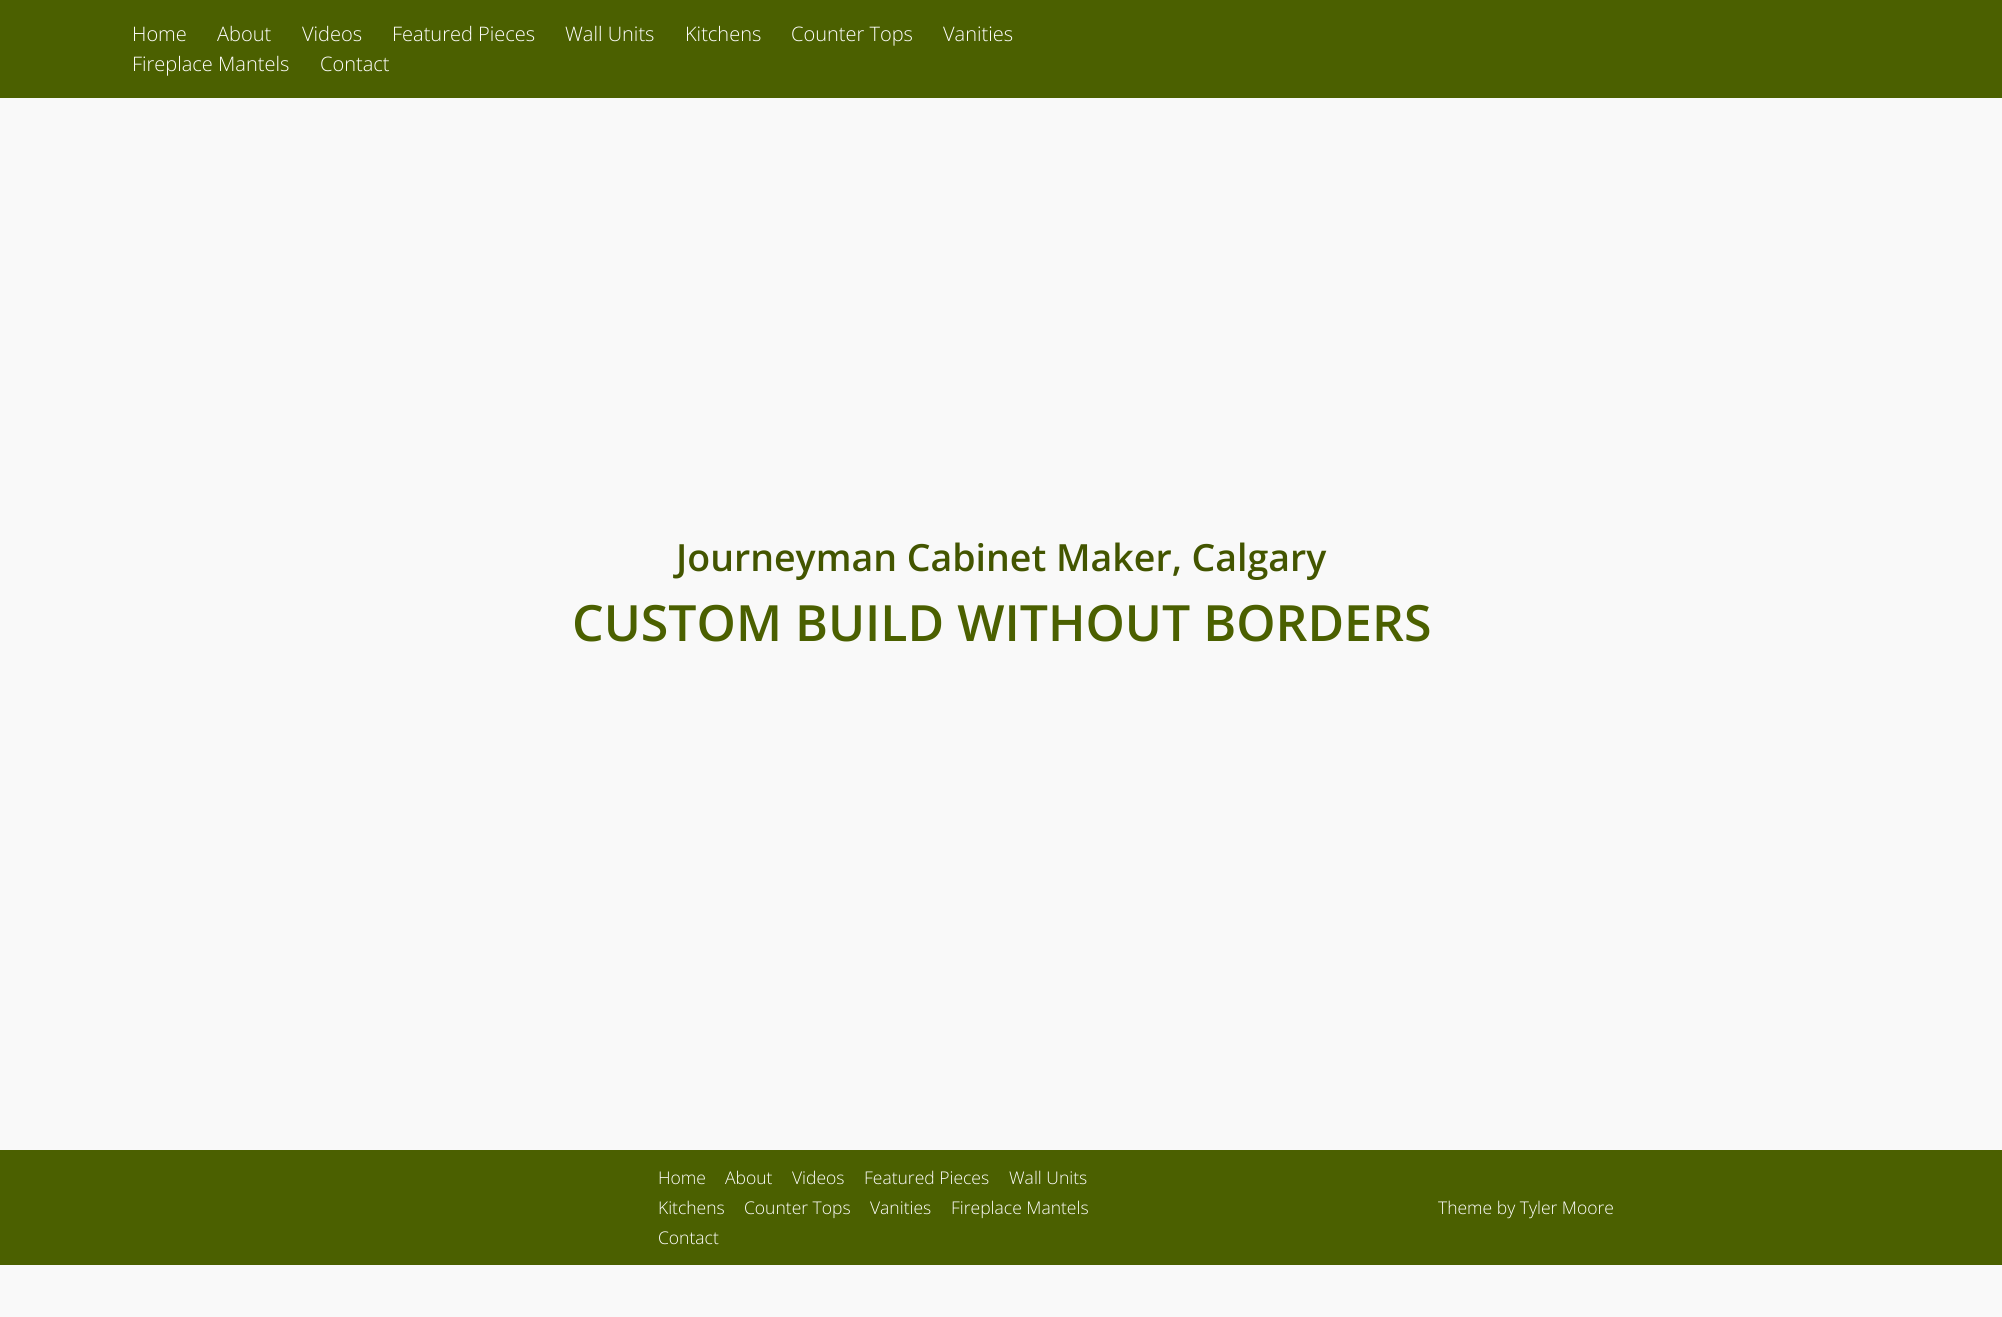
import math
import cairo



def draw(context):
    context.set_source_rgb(249 / 255, 249 / 255, 249 / 255)
    context.paint()
    context.set_source_rgb(75 / 255, 96 / 255, 0)
    context.rectangle(0, 0, 2002, 98)
    context.fill()
    context.rectangle(0, 1150, 2002, 115)
    context.fill()
    context.select_font_face("Open Sans Light")
    context.set_font_size(20)
    context.set_source_rgb(1, 1, 1)
    context.move_to(132, 41)
    context.show_text("Home")
    context.move_to(217, 41)
    context.show_text("About")
    context.move_to(302, 41)
    context.show_text("Videos")
    context.move_to(392, 41)
    context.show_text("Featured Pieces")
    context.move_to(565, 41)
    context.show_text("Wall Units")
    context.move_to(685, 41)
    context.show_text("Kitchens")
    context.move_to(791, 41)
    context.show_text("Counter Tops")
    context.move_to(943, 41)
    context.show_text("Vanities")
    context.move_to(132, 71)
    context.show_text("Fireplace Mantels")
    context.move_to(320, 71)
    context.show_text("Contact")
    context.select_font_face("Open Sans SemiBold")
    context.set_font_size(37.5)
    context.set_source_rgb(67 / 255, 85 / 255, 0)
    context.move_to(676, 571)
    context.show_text("Journeyman Cabinet Maker, Calgary")
    context.set_font_size(50)
    context.set_source_rgb(75 / 255, 96 / 255, 0)
    context.move_to(572, 641)
    context.show_text("CUSTOM BUILD WITHOUT BORDERS")
    context.select_font_face("Open Sans Light")
    context.set_font_size(17.5)
    context.set_source_rgb(1, 1, 1)
    context.move_to(658, 1184)
    context.show_text("Home")
    context.move_to(725, 1184)
    context.show_text("About")
    context.move_to(792, 1184)
    context.show_text("Videos")
    context.move_to(864, 1184)
    context.show_text("Featured Pieces")
    context.move_to(1009, 1184)
    context.show_text("Wall Units")
    context.move_to(658, 1214)
    context.show_text("Kitchens")
    context.move_to(744, 1214)
    context.show_text("Counter Tops")
    context.move_to(870, 1214)
    context.show_text("Vanities")
    context.move_to(951, 1214)
    context.show_text("Fireplace Mantels")
    context.move_to(658, 1244)
    context.show_text("Contact")
    context.move_to(1438, 1214)
    context.show_text("Theme by Tyler Moore")


surface = cairo.ImageSurface(cairo.Format.RGB24, 2002, 1317)
context = cairo.Context(surface)
options = cairo.FontOptions()
options.set_hint_metrics(cairo.HintMetrics.OFF)
options.set_hint_style(cairo.HintStyle.NONE)
context.set_font_options(options)
context.set_miter_limit(4)
draw(context)
surface.write_to_png("out.png")
